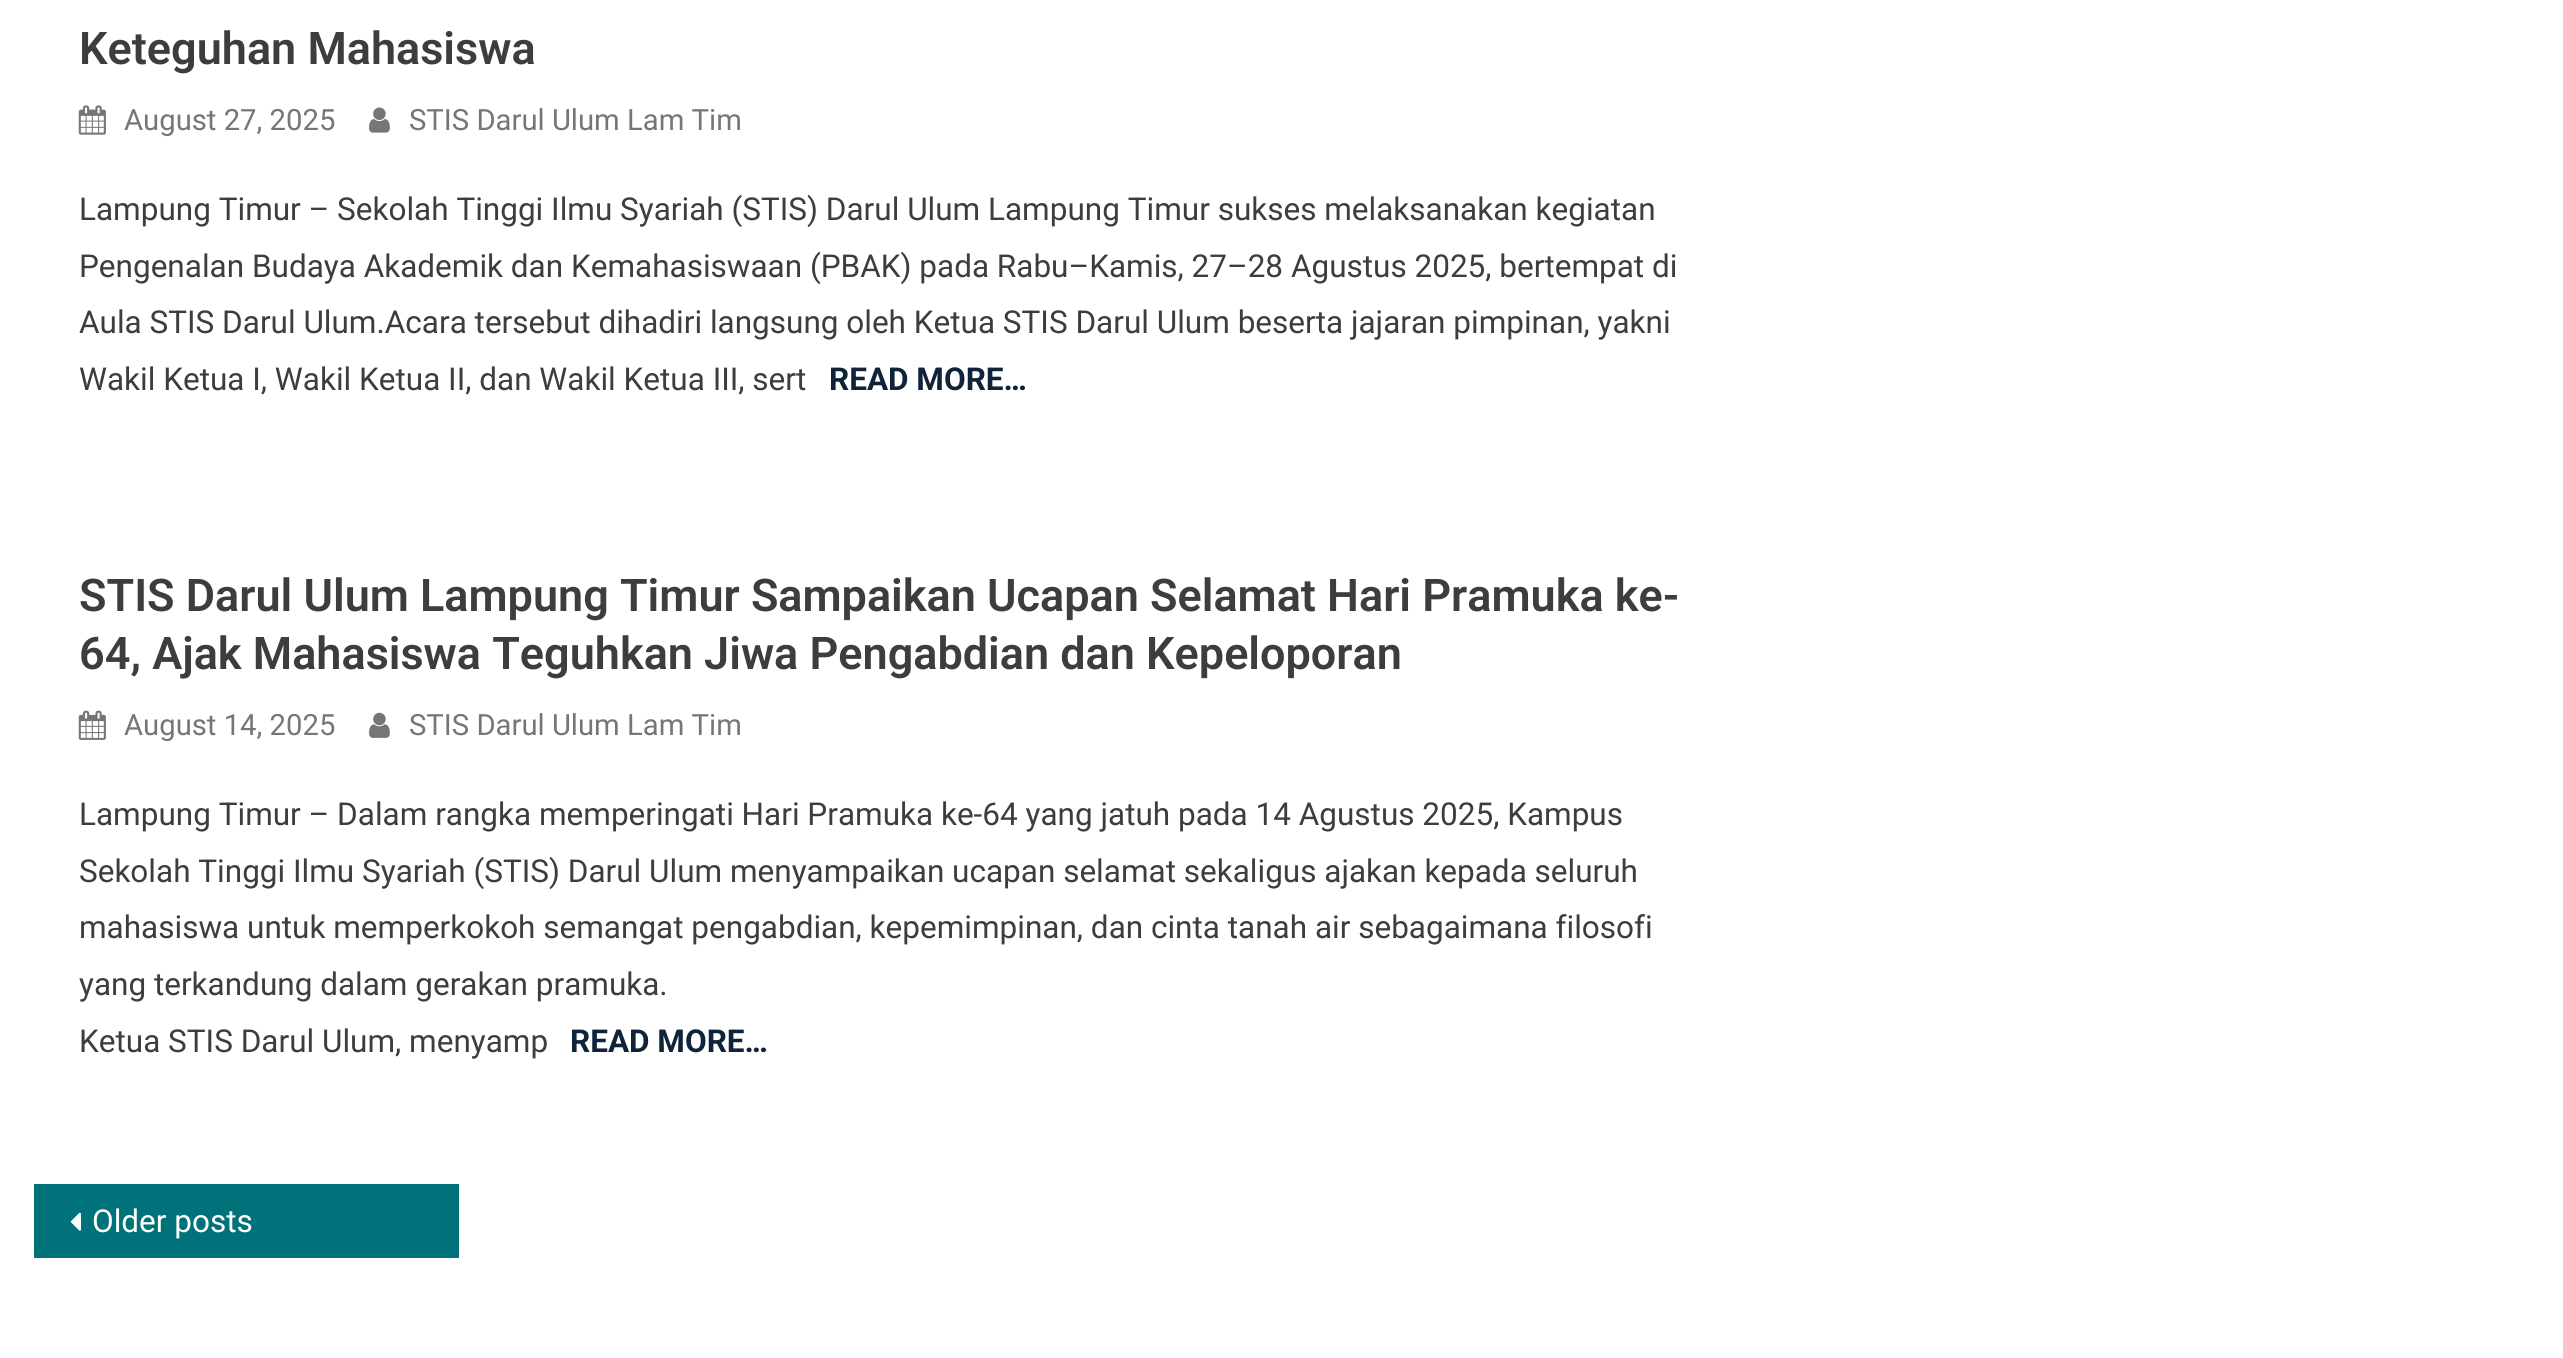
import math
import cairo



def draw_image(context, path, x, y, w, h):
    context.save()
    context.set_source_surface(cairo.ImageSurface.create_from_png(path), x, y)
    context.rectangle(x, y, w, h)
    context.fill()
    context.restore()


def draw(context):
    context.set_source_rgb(1, 1, 1)
    context.paint()
    draw_image(context, "images/1.png", 78, 105, 28, 30)
    draw_image(context, "images/2.png", 369, 107, 21, 26)
    draw_image(context, "images/3.png", 78, 710, 28, 30)
    draw_image(context, "images/4.png", 369, 712, 21, 26)
    context.set_source_rgb(0, 114 / 255, 122 / 255)
    context.rectangle(34, 1184, 425, 74)
    context.fill()
    draw_image(context, "images/5.png", 70, 1212, 11, 19)
    context.select_font_face("Roboto SemiBold")
    context.set_font_size(45)
    context.set_source_rgb(61 / 255, 61 / 255, 61 / 255)
    context.move_to(79, 64)
    context.show_text("Keteguhan Mahasiswa")
    context.select_font_face("Roboto")
    context.set_font_size(29.25)
    context.set_source_rgb(118 / 255, 118 / 255, 118 / 255)
    context.move_to(124, 130)
    context.show_text("August 27, 2025")
    context.move_to(409, 130)
    context.show_text("STIS Darul Ulum Lam Tim")
    context.set_font_size(31.5)
    context.set_source_rgb(61 / 255, 61 / 255, 61 / 255)
    context.move_to(79, 220)
    context.show_text("Lampung Timur – Sekolah Tinggi Ilmu Syariah (STIS) Darul Ulum Lampung Timur sukses melaksanakan kegiatan")
    context.move_to(79, 277)
    context.show_text("Pengenalan Budaya Akademik dan Kemahasiswaan (PBAK) pada Rabu–Kamis, 27–28 Agustus 2025, bertempat di")
    context.move_to(79, 333)
    context.show_text("Aula STIS Darul Ulum.Acara tersebut dihadiri langsung oleh Ketua STIS Darul Ulum beserta jajaran pimpinan, yakni")
    context.move_to(79, 390)
    context.show_text("Wakil Ketua I, Wakil Ketua II, dan Wakil Ketua III, sert")
    context.select_font_face("Roboto", cairo.FontSlant.NORMAL, cairo.FontWeight.BOLD)
    context.set_source_rgb(15 / 255, 35 / 255, 58 / 255)
    context.move_to(829, 390)
    context.show_text("READ MORE…")
    context.select_font_face("Roboto SemiBold")
    context.set_font_size(45)
    context.set_source_rgb(61 / 255, 61 / 255, 61 / 255)
    context.move_to(79, 611)
    context.show_text("STIS Darul Ulum Lampung Timur Sampaikan Ucapan Selamat Hari Pramuka ke-")
    context.move_to(79, 669)
    context.show_text("64, Ajak Mahasiswa Teguhkan Jiwa Pengabdian dan Kepeloporan")
    context.select_font_face("Roboto")
    context.set_font_size(29.25)
    context.set_source_rgb(118 / 255, 118 / 255, 118 / 255)
    context.move_to(124, 735)
    context.show_text("August 14, 2025")
    context.move_to(409, 735)
    context.show_text("STIS Darul Ulum Lam Tim")
    context.set_font_size(31.5)
    context.set_source_rgb(61 / 255, 61 / 255, 61 / 255)
    context.move_to(79, 825)
    context.show_text("Lampung Timur – Dalam rangka memperingati Hari Pramuka ke-64 yang jatuh pada 14 Agustus 2025, Kampus")
    context.move_to(79, 882)
    context.show_text("Sekolah Tinggi Ilmu Syariah (STIS) Darul Ulum menyampaikan ucapan selamat sekaligus ajakan kepada seluruh")
    context.move_to(79, 938)
    context.show_text("mahasiswa untuk memperkokoh semangat pengabdian, kepemimpinan, dan cinta tanah air sebagaimana filosofi")
    context.move_to(79, 995)
    context.show_text("yang terkandung dalam gerakan pramuka.")
    context.move_to(79, 1052)
    context.show_text("Ketua STIS Darul Ulum, menyamp")
    context.select_font_face("Roboto", cairo.FontSlant.NORMAL, cairo.FontWeight.BOLD)
    context.set_source_rgb(15 / 255, 35 / 255, 58 / 255)
    context.move_to(570, 1052)
    context.show_text("READ MORE…")
    context.select_font_face("Roboto")
    context.set_source_rgb(1, 1, 1)
    context.move_to(92, 1232)
    context.show_text("Older posts")


surface = cairo.ImageSurface(cairo.Format.RGB24, 2563, 1358)
context = cairo.Context(surface)
options = cairo.FontOptions()
options.set_hint_metrics(cairo.HintMetrics.OFF)
options.set_hint_style(cairo.HintStyle.NONE)
context.set_font_options(options)
context.set_miter_limit(4)
draw(context)
surface.write_to_png("out.png")
